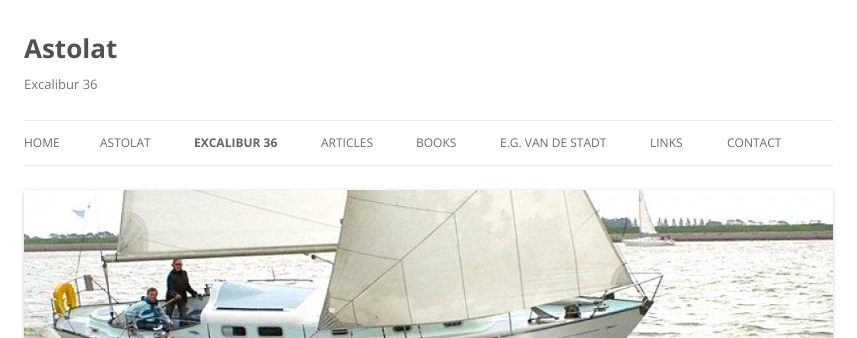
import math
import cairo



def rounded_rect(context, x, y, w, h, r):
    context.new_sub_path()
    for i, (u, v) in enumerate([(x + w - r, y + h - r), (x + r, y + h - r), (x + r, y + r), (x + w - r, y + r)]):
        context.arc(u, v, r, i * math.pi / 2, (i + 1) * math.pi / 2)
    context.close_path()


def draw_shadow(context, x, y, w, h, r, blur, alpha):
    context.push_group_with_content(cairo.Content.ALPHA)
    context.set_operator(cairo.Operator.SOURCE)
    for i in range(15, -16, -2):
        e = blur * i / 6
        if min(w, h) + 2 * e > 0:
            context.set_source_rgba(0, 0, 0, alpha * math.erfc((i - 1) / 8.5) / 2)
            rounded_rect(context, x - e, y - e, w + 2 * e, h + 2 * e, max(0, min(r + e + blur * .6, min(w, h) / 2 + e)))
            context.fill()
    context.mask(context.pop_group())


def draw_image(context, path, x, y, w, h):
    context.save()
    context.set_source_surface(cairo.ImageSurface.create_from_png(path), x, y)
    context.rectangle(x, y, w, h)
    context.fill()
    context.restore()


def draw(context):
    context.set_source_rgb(1, 1, 1)
    context.paint()
    context.set_source_rgb(237 / 255, 237 / 255, 237 / 255)
    context.rectangle(24, 120, 809, 1)
    context.fill()
    context.rectangle(24, 165, 809, 1)
    context.fill()
    context.set_source_rgb(0, 0, 0)
    draw_shadow(context, 24, 191, 809, 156, 3, 2, 0.2)
    draw_image(context, "images/1.png", 24, 190, 809, 148)
    context.select_font_face("Open Sans", cairo.FontSlant.NORMAL, cairo.FontWeight.BOLD)
    context.set_font_size(26)
    context.set_source_rgb(81 / 255, 81 / 255, 81 / 255)
    context.move_to(24, 58)
    context.show_text("Astolat")
    context.select_font_face("Open Sans")
    context.set_font_size(13)
    context.set_source_rgb(117 / 255, 117 / 255, 117 / 255)
    context.move_to(24, 89)
    context.show_text("Excalibur 36")
    context.set_font_size(12)
    context.set_source_rgb(106 / 255, 106 / 255, 106 / 255)
    context.move_to(24, 147)
    context.show_text("HOME")
    context.move_to(100, 147)
    context.show_text("ASTOLAT")
    context.select_font_face("Open Sans", cairo.FontSlant.NORMAL, cairo.FontWeight.BOLD)
    context.set_source_rgb(99 / 255, 99 / 255, 99 / 255)
    context.move_to(194, 147)
    context.show_text("EXCALIBUR 36")
    context.select_font_face("Open Sans")
    context.set_source_rgb(106 / 255, 106 / 255, 106 / 255)
    context.move_to(321, 147)
    context.show_text("ARTICLES")
    context.move_to(416, 147)
    context.show_text("BOOKS")
    context.move_to(500, 147)
    context.show_text("E.G. VAN DE STADT")
    context.move_to(650, 147)
    context.show_text("LINKS")
    context.move_to(727, 147)
    context.show_text("CONTACT")


surface = cairo.ImageSurface(cairo.Format.RGB24, 857, 338)
context = cairo.Context(surface)
options = cairo.FontOptions()
options.set_hint_metrics(cairo.HintMetrics.OFF)
options.set_hint_style(cairo.HintStyle.NONE)
context.set_font_options(options)
context.set_miter_limit(4)
draw(context)
surface.write_to_png("out.png")
